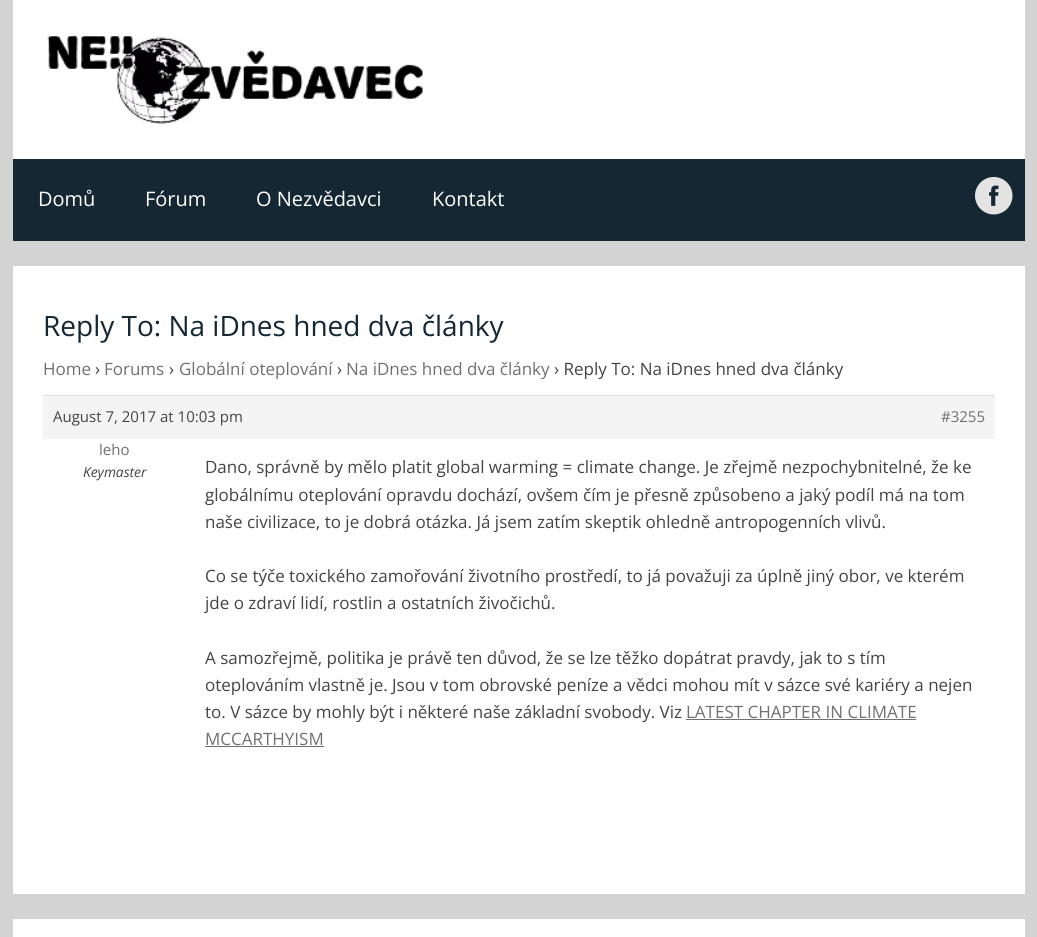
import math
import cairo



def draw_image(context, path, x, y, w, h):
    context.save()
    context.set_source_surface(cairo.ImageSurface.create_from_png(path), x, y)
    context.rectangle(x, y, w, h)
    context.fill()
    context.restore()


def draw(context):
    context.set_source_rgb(211 / 255, 211 / 255, 211 / 255)
    context.paint()
    context.set_source_rgb(1, 1, 1)
    context.rectangle(13, 0, 1012, 159)
    context.fill()
    draw_image(context, "images/1.png", 47, 35, 376, 89)
    context.set_source_rgb(21 / 255, 39 / 255, 50 / 255)
    context.rectangle(13, 159, 1012, 82)
    context.fill()
    draw_image(context, "images/2.png", 975, 177, 38, 38)
    context.set_source_rgb(1, 1, 1)
    context.rectangle(13, 266, 1012, 628)
    context.fill()
    context.set_source_rgb(244 / 255, 244 / 255, 244 / 255)
    context.rectangle(43, 396, 952, 43)
    context.fill()
    context.set_source_rgb(221 / 255, 221 / 255, 221 / 255)
    context.rectangle(43, 395, 952, 1)
    context.fill()
    context.set_source_rgb(112 / 255, 112 / 255, 112 / 255)
    context.rectangle(686, 719, 230, 1)
    context.fill()
    context.rectangle(205, 746, 119, 1)
    context.fill()
    context.set_source_rgb(1, 1, 1)
    context.rectangle(13, 919, 1012, 18)
    context.fill()
    context.select_font_face("Open Sans")
    context.set_font_size(20)
    context.move_to(38, 206)
    context.show_text("Domů")
    context.move_to(145, 206)
    context.show_text("Fórum")
    context.move_to(256, 206)
    context.show_text("O Nezvědavci")
    context.move_to(432, 206)
    context.show_text("Kontakt")
    context.set_font_size(28)
    context.set_source_rgb(21 / 255, 39 / 255, 50 / 255)
    context.move_to(43, 336)
    context.show_text("Reply To: Na iDnes hned dva články")
    context.set_font_size(17)
    context.set_source_rgb(112 / 255, 112 / 255, 112 / 255)
    context.move_to(43, 375)
    context.show_text("Home")
    context.set_source_rgb(68 / 255, 68 / 255, 68 / 255)
    context.move_to(95, 375)
    context.show_text("›")
    context.set_source_rgb(112 / 255, 112 / 255, 112 / 255)
    context.move_to(104, 375)
    context.show_text("Forums")
    context.set_source_rgb(68 / 255, 68 / 255, 68 / 255)
    context.move_to(169, 375)
    context.show_text("›")
    context.set_source_rgb(112 / 255, 112 / 255, 112 / 255)
    context.move_to(179, 375)
    context.show_text("Globální oteplování")
    context.set_source_rgb(68 / 255, 68 / 255, 68 / 255)
    context.move_to(337, 375)
    context.show_text("›")
    context.set_source_rgb(112 / 255, 112 / 255, 112 / 255)
    context.move_to(346, 375)
    context.show_text("Na iDnes hned dva články")
    context.set_source_rgb(68 / 255, 68 / 255, 68 / 255)
    context.move_to(554, 375)
    context.show_text("› Reply To: Na iDnes hned dva články")
    context.set_font_size(15)
    context.move_to(53, 422)
    context.show_text("August 7, 2017 at 10:03 pm")
    context.set_source_rgb(112 / 255, 112 / 255, 112 / 255)
    context.move_to(941, 422)
    context.show_text("#3255")
    context.move_to(99, 455)
    context.show_text("leho")
    context.select_font_face("Open Sans", cairo.FontSlant.ITALIC)
    context.set_font_size(13.75)
    context.set_source_rgb(68 / 255, 68 / 255, 68 / 255)
    context.move_to(83, 477)
    context.show_text("Keymaster")
    context.select_font_face("Open Sans")
    context.set_font_size(17)
    context.move_to(205, 473)
    context.show_text("Dano, správně by mělo platit global warming = climate change. Je zřejmě nezpochybnitelné, že ke")
    context.move_to(205, 501)
    context.show_text("globálnímu oteplování opravdu dochází, ovšem čím je přesně způsobeno a jaký podíl má na tom")
    context.move_to(205, 528)
    context.show_text("naše civilizace, to je dobrá otázka. Já jsem zatím skeptik ohledně antropogenních vlivů.")
    context.move_to(205, 582)
    context.show_text("Co se týče toxického zamořování životního prostředí, to já považuji za úplně jiný obor, ve kterém")
    context.move_to(205, 609)
    context.show_text("jde o zdraví lidí, rostlin a ostatních živočichů.")
    context.move_to(205, 664)
    context.show_text("A samozřejmě, politika je právě ten důvod, že se lze těžko dopátrat pravdy, jak to s tím")
    context.move_to(205, 691)
    context.show_text("oteplováním vlastně je. Jsou v tom obrovské peníze a vědci mohou mít v sázce své kariéry a nejen")
    context.move_to(205, 718)
    context.show_text("to. V sázce by mohly být i některé naše základní svobody. Viz")
    context.set_source_rgb(112 / 255, 112 / 255, 112 / 255)
    context.move_to(686, 718)
    context.show_text("LATEST CHAPTER IN CLIMATE")
    context.move_to(205, 745)
    context.show_text("MCCARTHYISM")


surface = cairo.ImageSurface(cairo.Format.RGB24, 1037, 937)
context = cairo.Context(surface)
options = cairo.FontOptions()
options.set_hint_metrics(cairo.HintMetrics.OFF)
options.set_hint_style(cairo.HintStyle.NONE)
context.set_font_options(options)
context.set_miter_limit(4)
draw(context)
surface.write_to_png("out.png")
